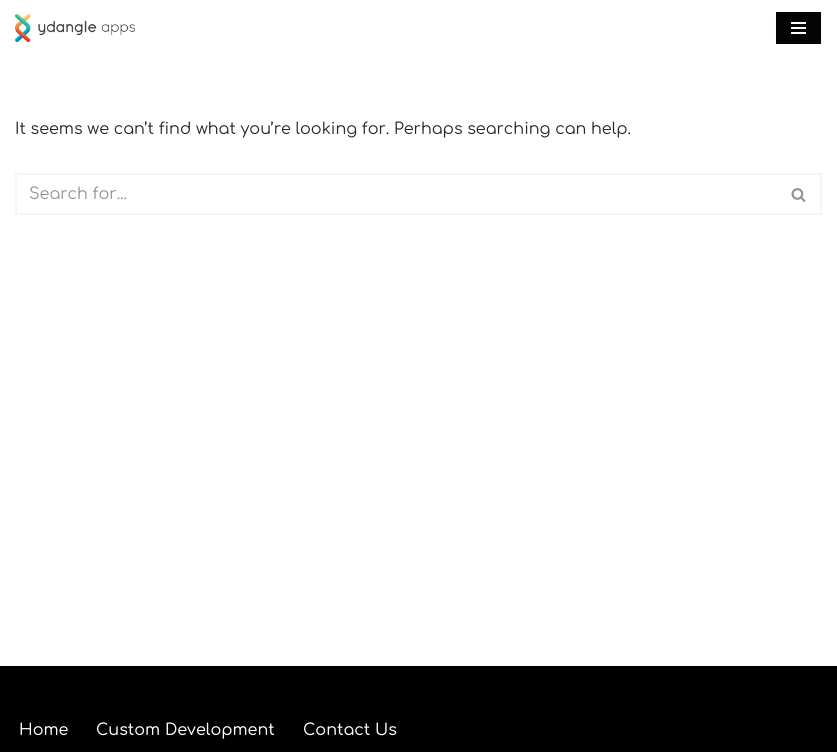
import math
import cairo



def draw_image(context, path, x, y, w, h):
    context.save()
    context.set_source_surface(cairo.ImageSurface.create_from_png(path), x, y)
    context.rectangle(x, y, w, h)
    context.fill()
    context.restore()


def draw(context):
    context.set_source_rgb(1, 1, 1)
    context.paint()
    draw_image(context, "images/1.png", 15, 14, 120, 28)
    context.set_source_rgb(4 / 255, 4 / 255, 4 / 255)
    context.rectangle(775.5, 11.5, 46, 33)
    context.fill_preserve()
    context.set_source_rgb(254 / 255, 251 / 255, 251 / 255)
    context.set_line_width(1)
    context.stroke()
    context.rectangle(791, 22, 15, 2)
    context.fill()
    context.rectangle(791, 27, 15, 2)
    context.fill()
    context.rectangle(791, 32, 15, 2)
    context.fill()
    context.set_source_rgb(244 / 255, 245 / 255, 247 / 255)
    context.rectangle(15, 173, 807, 2)
    context.fill()
    context.rectangle(15, 213, 762, 2)
    context.fill()
    context.rectangle(15, 173, 2, 42)
    context.fill()
    context.rectangle(820, 173, 2, 42)
    context.fill()
    context.rectangle(777, 213, 45, 2)
    context.fill()
    draw_image(context, "images/2.png", 791, 188, 15, 14)
    context.set_source_rgb(0, 0, 0)
    context.rectangle(0, 666, 837, 86)
    context.fill()
    context.select_font_face("Comfortaa")
    context.set_font_size(16)
    context.set_source_rgb(39 / 255, 38 / 255, 38 / 255)
    context.move_to(15, 134)
    context.show_text("It seems we can’t find what you’re looking for. Perhaps searching can help.")
    context.set_source_rgb(147 / 255, 147 / 255, 147 / 255)
    context.move_to(29, 199)
    context.show_text("Search for...")
    context.select_font_face("Comfortaa Medium")
    context.set_source_rgb(1, 1, 1)
    context.move_to(19, 735)
    context.show_text("Home")
    context.move_to(96, 735)
    context.show_text("Custom Development")
    context.move_to(303, 735)
    context.show_text("Contact Us")


surface = cairo.ImageSurface(cairo.Format.RGB24, 837, 752)
context = cairo.Context(surface)
options = cairo.FontOptions()
options.set_hint_metrics(cairo.HintMetrics.OFF)
options.set_hint_style(cairo.HintStyle.NONE)
context.set_font_options(options)
context.set_miter_limit(4)
draw(context)
surface.write_to_png("out.png")
